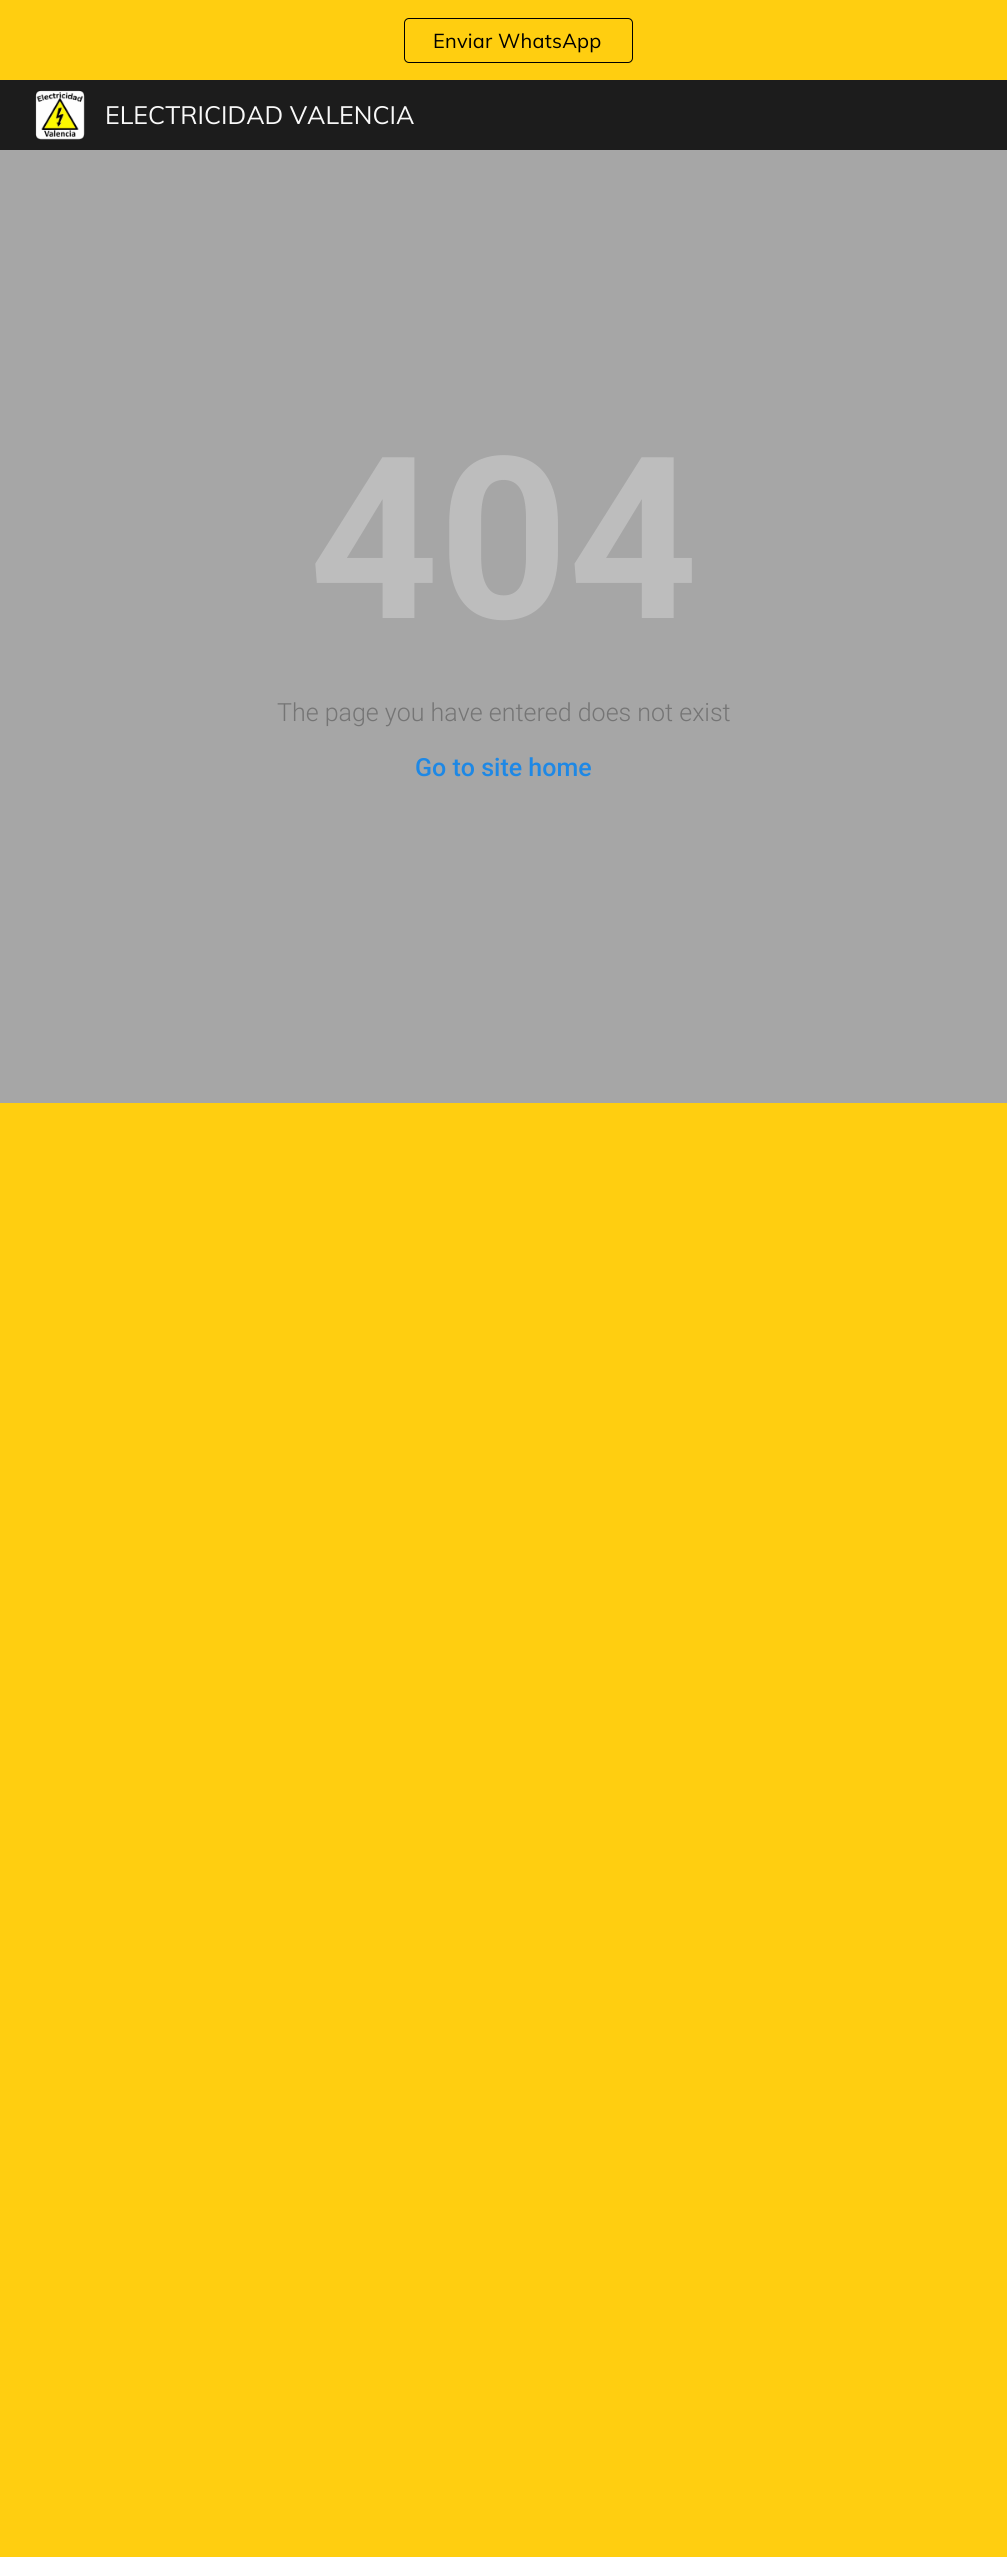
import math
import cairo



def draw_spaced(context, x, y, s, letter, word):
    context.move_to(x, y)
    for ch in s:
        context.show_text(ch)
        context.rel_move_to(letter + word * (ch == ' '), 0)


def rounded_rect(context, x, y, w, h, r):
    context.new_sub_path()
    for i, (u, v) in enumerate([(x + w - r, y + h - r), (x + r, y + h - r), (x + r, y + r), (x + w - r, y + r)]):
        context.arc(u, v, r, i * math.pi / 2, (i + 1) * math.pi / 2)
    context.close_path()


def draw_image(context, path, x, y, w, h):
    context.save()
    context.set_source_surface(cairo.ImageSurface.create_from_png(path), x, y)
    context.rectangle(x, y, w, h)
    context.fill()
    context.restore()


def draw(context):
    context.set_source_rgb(1, 206 / 255, 16 / 255)
    context.paint()
    rounded_rect(context, 404.5, 18.5, 228, 44, 4.5)
    context.set_source_rgb(0, 0, 0)
    context.set_line_width(1)
    context.stroke()
    context.set_source_rgb(28 / 255, 28 / 255, 28 / 255)
    context.rectangle(0, 80, 1007, 70)
    context.fill()
    draw_image(context, "images/1.png", 35, 90, 50, 50)
    context.set_source_rgb(166 / 255, 166 / 255, 166 / 255)
    context.rectangle(0, 150, 1007, 953)
    context.fill()
    context.select_font_face("Muli")
    context.set_font_size(20)
    context.set_source_rgb(0, 0, 0)
    draw_spaced(context, 433, 48, "Enviar WhatsApp", 0.25, 0)
    context.set_font_size(25)
    context.set_source_rgb(249 / 255, 249 / 255, 249 / 255)
    context.move_to(105, 124)
    context.show_text("ELECTRICIDAD VALENCIA")
    context.select_font_face("Roboto", cairo.FontSlant.NORMAL, cairo.FontWeight.BOLD)
    context.set_font_size(226)
    context.set_source_rgb(189 / 255, 189 / 255, 189 / 255)
    context.move_to(309, 618)
    context.show_text("404")
    context.select_font_face("Roboto Light")
    context.set_font_size(25)
    context.set_source_rgb(117 / 255, 117 / 255, 117 / 255)
    context.move_to(277, 721)
    context.show_text("The page you have entered does not exist")
    context.select_font_face("Roboto Medium")
    context.set_source_rgb(30 / 255, 136 / 255, 229 / 255)
    context.move_to(415, 776)
    context.show_text("Go to site home")


surface = cairo.ImageSurface(cairo.Format.RGB24, 1007, 2557)
context = cairo.Context(surface)
options = cairo.FontOptions()
options.set_hint_metrics(cairo.HintMetrics.OFF)
options.set_hint_style(cairo.HintStyle.NONE)
context.set_font_options(options)
context.set_miter_limit(4)
draw(context)
surface.write_to_png("out.png")
